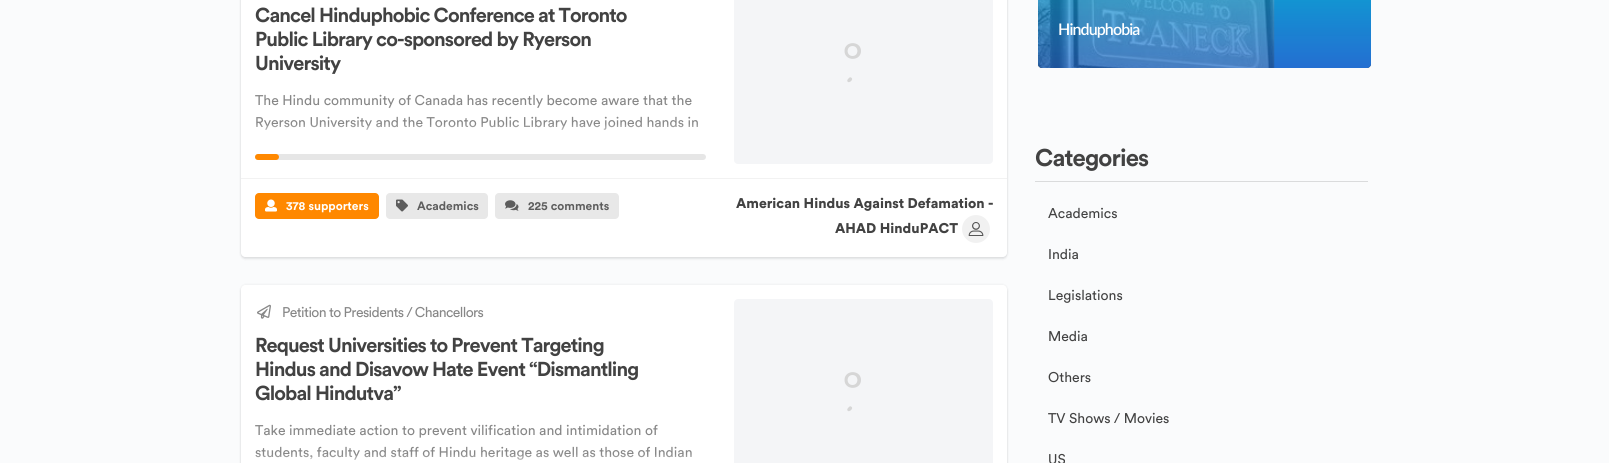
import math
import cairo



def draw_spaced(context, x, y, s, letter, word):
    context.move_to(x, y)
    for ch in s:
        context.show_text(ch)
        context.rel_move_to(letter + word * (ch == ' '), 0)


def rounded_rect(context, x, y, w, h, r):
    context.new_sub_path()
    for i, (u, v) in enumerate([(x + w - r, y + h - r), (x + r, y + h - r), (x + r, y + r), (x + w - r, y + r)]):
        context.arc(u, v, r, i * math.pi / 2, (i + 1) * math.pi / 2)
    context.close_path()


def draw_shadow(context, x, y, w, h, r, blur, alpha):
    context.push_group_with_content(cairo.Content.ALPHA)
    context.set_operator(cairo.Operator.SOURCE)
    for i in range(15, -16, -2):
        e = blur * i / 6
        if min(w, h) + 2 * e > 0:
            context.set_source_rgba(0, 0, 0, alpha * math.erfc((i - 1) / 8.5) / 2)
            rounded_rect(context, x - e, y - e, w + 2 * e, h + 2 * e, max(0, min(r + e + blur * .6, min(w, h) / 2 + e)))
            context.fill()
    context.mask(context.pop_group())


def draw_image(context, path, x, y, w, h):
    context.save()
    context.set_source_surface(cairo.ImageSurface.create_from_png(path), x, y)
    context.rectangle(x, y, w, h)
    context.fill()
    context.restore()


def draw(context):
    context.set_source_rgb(250 / 255, 251 / 255, 252 / 255)
    context.paint()
    context.set_source_rgb(34 / 255, 36 / 255, 38 / 255)
    draw_shadow(context, 241, -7, 766, 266, 4, 1, 0.1)
    draw_shadow(context, 241, -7, 766, 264, 4, 1, 0.1)
    context.set_source_rgb(1, 1, 1)
    context.rectangle(241, 0, 766, 178)
    context.fill()
    context.set_source_rgb(230 / 255, 230 / 255, 230 / 255)
    rounded_rect(context, 255, 154, 451, 6, 3)
    context.fill()
    context.set_source_rgb(1, 136 / 255, 0)
    rounded_rect(context, 255, 154, 24, 6, 3)
    context.fill()
    context.set_source_rgb(244 / 255, 245 / 255, 247 / 255)
    rounded_rect(context, 734, -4, 259, 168, 4)
    context.fill()
    context.set_source_rgb(214 / 255, 214 / 255, 214 / 255)
    context.new_path()
    context.move_to(849.5, 77.5)
    context.curve_to(848.5, 78.5, 846.5, 80, 847.5, 81.5)
    context.curve_to(849, 84, 854.5, 79, 851, 77.5)
    context.curve_to(850.5, 77, 850, 77.5, 849.5, 77.5)
    context.close_path()
    context.move_to(861, 51)
    context.curve_to(861, 40.5, 844.5, 40.5, 844.5, 51)
    context.curve_to(844.5, 61.5, 861, 61.5, 861, 51)
    context.close_path()
    context.move_to(852.5, 56)
    context.curve_to(846, 56, 846, 46, 852.5, 46)
    context.curve_to(859, 46, 859, 56, 852.5, 56)
    context.close_path()
    context.fill()
    context.set_source_rgb(1, 1, 1)
    context.new_path()
    context.move_to(241, 178)
    context.line_to(1007, 178)
    context.line_to(1007, 253)
    context.curve_to(1007, 255, 1005, 257, 1003, 257)
    context.line_to(245, 257)
    context.curve_to(243, 257, 241, 255, 241, 253)
    context.close_path()
    context.fill()
    context.set_source_rgb(242 / 255, 242 / 255, 242 / 255)
    context.rectangle(241, 178, 766, 1)
    context.fill()
    context.set_source_rgb(1, 136 / 255, 0)
    rounded_rect(context, 255, 193, 124, 26, 4)
    context.fill()
    draw_image(context, "images/1.png", 265, 199, 12, 13)
    context.set_source_rgb(232 / 255, 232 / 255, 232 / 255)
    rounded_rect(context, 386, 193, 102, 26, 4)
    context.fill()
    draw_image(context, "images/2.png", 396, 199, 12, 13)
    rounded_rect(context, 495, 193, 124, 26, 4)
    context.fill()
    draw_image(context, "images/3.png", 505, 200, 14, 11)
    draw_image(context, "images/4.png", 962, 215, 28, 28)
    context.set_source_rgb(34 / 255, 36 / 255, 38 / 255)
    draw_shadow(context, 241, 287, 766, 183, 4, 1, 0.1)
    draw_shadow(context, 241, 285, 766, 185, 4, 1, 0.1)
    context.set_source_rgb(1, 1, 1)
    context.new_path()
    context.move_to(245, 285)
    context.line_to(1003, 285)
    context.curve_to(1005, 285, 1007, 287, 1007, 289)
    context.line_to(1007, 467)
    context.line_to(241, 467)
    context.line_to(241, 289)
    context.curve_to(241, 287, 243, 285, 245, 285)
    context.close_path()
    context.fill()
    draw_image(context, "images/5.png", 257, 304, 14, 15)
    context.save()
    rounded_rect(context, 734, 299, 259, 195, 4)
    context.clip()
    context.set_source_rgb(244 / 255, 245 / 255, 247 / 255)
    context.new_path()
    context.move_to(738, 299)
    context.line_to(989, 299)
    context.curve_to(991, 299, 993, 301, 993, 303)
    context.line_to(993, 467)
    context.line_to(734, 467)
    context.line_to(734, 303)
    context.curve_to(734, 301, 736, 299, 738, 299)
    context.close_path()
    context.fill()
    context.restore()
    context.set_source_rgb(214 / 255, 214 / 255, 214 / 255)
    context.new_path()
    context.move_to(849.5, 406.5)
    context.curve_to(848.5, 407.5, 846.5, 409, 847.5, 410.5)
    context.curve_to(849, 413, 854.5, 408, 851, 406.5)
    context.curve_to(850.5, 406, 850, 406.5, 849.5, 406.5)
    context.close_path()
    context.move_to(861, 380)
    context.curve_to(861, 369.5, 844.5, 369.5, 844.5, 380)
    context.curve_to(844.5, 390.5, 861, 390.5, 861, 380)
    context.close_path()
    context.move_to(852.5, 385)
    context.curve_to(846, 385, 846, 375, 852.5, 375)
    context.curve_to(859, 375, 859, 385, 852.5, 385)
    context.close_path()
    context.fill()
    context.set_source_rgb(26 / 255, 26 / 255, 26 / 255)
    rounded_rect(context, 1038, -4, 333, 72, 4)
    context.fill()
    gradient = cairo.LinearGradient(1205, -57, 1205, 68)
    gradient.add_color_stop_rgba(0, 0, 199 / 255, 230 / 255, 0.9)
    gradient.add_color_stop_rgba(1, 38 / 255, 132 / 255, 1, 0.8)
    context.set_source(gradient)
    rounded_rect(context, 1038, -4, 333, 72, 4)
    context.fill()
    draw_image(context, "images/6.png", 1038, 0, 237, 68)
    context.set_source_rgb(218 / 255, 219 / 255, 220 / 255)
    context.rectangle(1035, 181, 333, 1)
    context.fill()
    context.select_font_face("Circular", cairo.FontSlant.NORMAL, cairo.FontWeight.BOLD)
    context.set_font_size(20)
    context.set_source_rgb(66 / 255, 66 / 255, 66 / 255)
    draw_spaced(context, 255, 22, "Cancel Hinduphobic Conference at Toronto", -0.9, 0)
    draw_spaced(context, 255, 46, "Public Library co-sponsored by Ryerson", -0.9, 0)
    draw_spaced(context, 255, 70, "University", -0.9, 0)
    context.select_font_face("Circular")
    context.set_font_size(14)
    context.set_source_rgb(135 / 255, 135 / 255, 135 / 255)
    context.move_to(255, 105)
    context.show_text("The Hindu community of Canada has recently become aware that the")
    context.move_to(255, 127)
    context.show_text("Ryerson University and the Toronto Public Library have joined hands in")
    gradient = cairo.LinearGradient(481, 124, 481, 178)
    gradient.add_color_stop_rgba(0, 1, 1, 1, 0)
    gradient.add_color_stop_rgba(0.26, 1, 1, 1, 1)
    context.set_source(gradient)
    context.rectangle(256, 124, 442, 6)
    context.fill()
    context.select_font_face("Circular", cairo.FontSlant.NORMAL, cairo.FontWeight.BOLD)
    context.set_font_size(12)
    context.set_source_rgb(1, 1, 1)
    context.move_to(286, 210)
    context.show_text("378 supporters")
    context.set_source_rgb(93 / 255, 93 / 255, 93 / 255)
    context.move_to(417, 210)
    context.show_text("Academics")
    context.move_to(528, 210)
    context.show_text("225 comments")
    context.select_font_face("Circular Black")
    context.set_font_size(14)
    context.set_source_rgb(66 / 255, 66 / 255, 66 / 255)
    context.move_to(736, 208)
    context.show_text("American Hindus Against Defamation -")
    context.move_to(835, 233)
    context.show_text("AHAD HinduPACT")
    context.select_font_face("Circular")
    context.set_source_rgb(135 / 255, 135 / 255, 135 / 255)
    draw_spaced(context, 282, 317, "Petition to Presidents / Chancellors", -0.6, 0)
    context.select_font_face("Circular", cairo.FontSlant.NORMAL, cairo.FontWeight.BOLD)
    context.set_font_size(20)
    context.set_source_rgb(66 / 255, 66 / 255, 66 / 255)
    draw_spaced(context, 255, 352, "Request Universities to Prevent Targeting", -0.9, 0)
    draw_spaced(context, 255, 376, "Hindus and Disavow Hate Event “Dismantling", -0.9, 0)
    draw_spaced(context, 255, 400, "Global Hindutva”", -0.9, 0)
    context.select_font_face("Circular")
    context.set_font_size(14)
    context.set_source_rgb(135 / 255, 135 / 255, 135 / 255)
    context.move_to(255, 435)
    context.show_text("Take immediate action to prevent vilification and intimidation of")
    context.move_to(255, 457)
    context.show_text("students, faculty and staff of Hindu heritage as well as those of Indian")
    gradient = cairo.LinearGradient(481, 454, 481, 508)
    gradient.add_color_stop_rgba(0, 1, 1, 1, 0)
    gradient.add_color_stop_rgba(0.26, 1, 1, 1, 1)
    context.set_source(gradient)
    context.rectangle(255, 454, 437, 6)
    context.fill()
    context.select_font_face("Lato SemiBold")
    context.set_font_size(16)
    context.set_source_rgb(1, 1, 1)
    draw_spaced(context, 1058, 35, "Hinduphobia", -0.9, 0)
    context.select_font_face("Circular", cairo.FontSlant.NORMAL, cairo.FontWeight.BOLD)
    context.set_font_size(24)
    context.set_source_rgb(66 / 255, 66 / 255, 66 / 255)
    draw_spaced(context, 1035, 166, "Categories", -0.9, 0)
    context.select_font_face("Circular")
    context.set_font_size(14)
    context.move_to(1048, 218)
    context.show_text("Academics")
    context.move_to(1048, 259)
    context.show_text("India")
    context.move_to(1048, 300)
    context.show_text("Legislations")
    context.move_to(1048, 341)
    context.show_text("Media")
    context.move_to(1048, 382)
    context.show_text("Others")
    context.move_to(1048, 423)
    context.show_text("TV Shows / Movies")
    context.move_to(1048, 464)
    context.show_text("US")


surface = cairo.ImageSurface(cairo.Format.RGB24, 1609, 463)
context = cairo.Context(surface)
options = cairo.FontOptions()
options.set_hint_metrics(cairo.HintMetrics.OFF)
options.set_hint_style(cairo.HintStyle.NONE)
context.set_font_options(options)
context.set_miter_limit(4)
draw(context)
surface.write_to_png("out.png")
